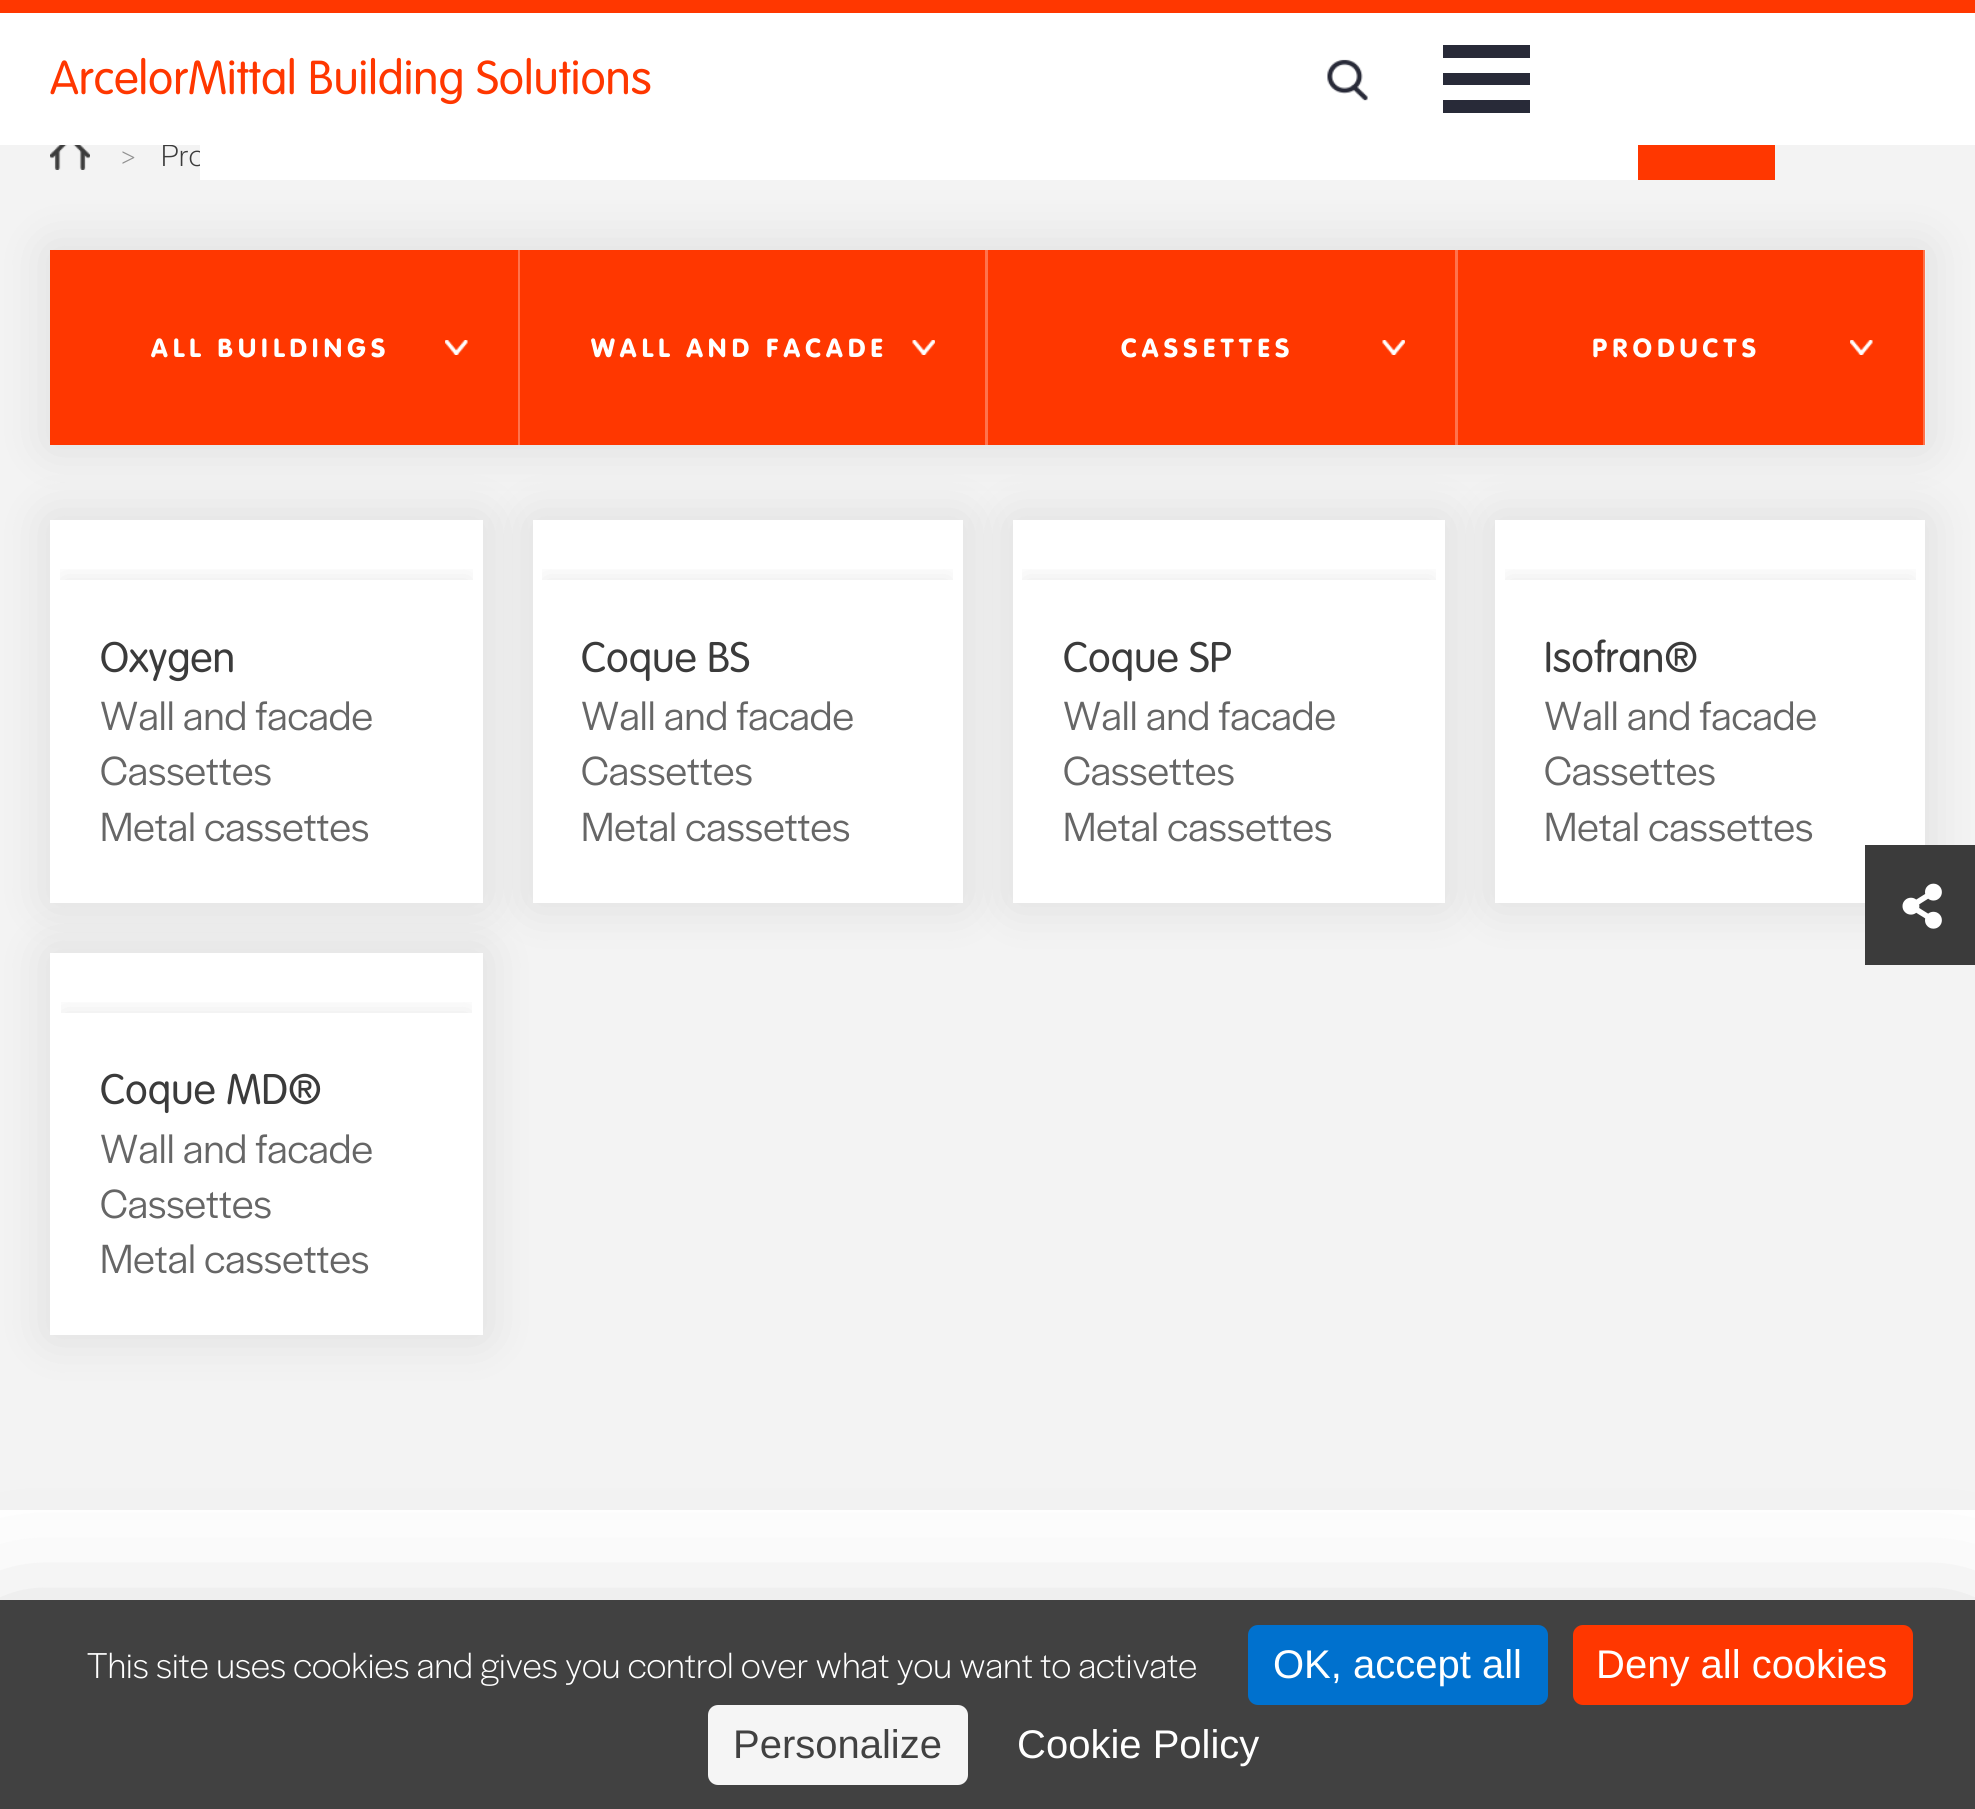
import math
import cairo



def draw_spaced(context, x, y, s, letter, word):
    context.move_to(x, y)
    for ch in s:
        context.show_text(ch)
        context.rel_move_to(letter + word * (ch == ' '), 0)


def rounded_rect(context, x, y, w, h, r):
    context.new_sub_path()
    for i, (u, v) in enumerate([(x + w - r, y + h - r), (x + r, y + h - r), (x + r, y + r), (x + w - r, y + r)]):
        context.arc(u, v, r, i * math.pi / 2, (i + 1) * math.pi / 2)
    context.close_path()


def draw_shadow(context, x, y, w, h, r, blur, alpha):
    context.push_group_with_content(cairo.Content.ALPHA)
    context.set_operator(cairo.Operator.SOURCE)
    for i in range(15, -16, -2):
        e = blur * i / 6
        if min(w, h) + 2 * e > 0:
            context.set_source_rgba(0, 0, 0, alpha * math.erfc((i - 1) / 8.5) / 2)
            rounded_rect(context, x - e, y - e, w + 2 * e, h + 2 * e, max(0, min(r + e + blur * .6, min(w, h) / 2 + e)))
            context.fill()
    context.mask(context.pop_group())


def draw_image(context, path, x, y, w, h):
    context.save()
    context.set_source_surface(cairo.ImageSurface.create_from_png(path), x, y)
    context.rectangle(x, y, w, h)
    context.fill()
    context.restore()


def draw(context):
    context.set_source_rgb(1, 1, 1)
    context.paint()
    context.set_source_rgb(1, 55 / 255, 0)
    context.rectangle(0, 0, 1975, 13)
    context.fill()
    draw_image(context, "images/1.png", 1327, 59, 41, 42)
    context.set_source_rgb(40 / 255, 42 / 255, 56 / 255)
    context.rectangle(1443, 45, 87, 13)
    context.fill()
    context.rectangle(1443, 73, 87, 12)
    context.fill()
    context.rectangle(1443, 100, 87, 13)
    context.fill()
    context.set_source_rgb(243 / 255, 243 / 255, 243 / 255)
    context.rectangle(0, 145, 1975, 1365)
    context.fill()
    draw_image(context, "images/2.png", 50, 145, 40, 25)
    context.set_source_rgb(0, 0, 0)
    draw_shadow(context, 50, 250, 1875, 195, 0, 25, 0.1)
    draw_shadow(context, 50, 520, 433, 383, 0, 25, 0.1)
    context.set_source_rgb(1, 1, 1)
    context.rectangle(50, 520, 433, 383)
    context.fill()
    context.set_source_rgb(0, 0, 0)
    draw_shadow(context, 533, 520, 430, 383, 0, 25, 0.1)
    context.set_source_rgb(1, 55 / 255, 0)
    context.rectangle(50, 250, 468, 195)
    context.fill()
    context.set_source_rgb(1, 115 / 255, 77 / 255)
    context.rectangle(518, 250, 2, 195)
    context.fill()
    draw_image(context, "images/3.png", 445, 340, 23, 15)
    context.set_source_rgb(1, 1, 1)
    context.rectangle(533, 520, 430, 383)
    context.fill()
    context.set_source_rgb(0, 0, 0)
    draw_shadow(context, 1013, 520, 432, 383, 0, 25, 0.1)
    context.set_source_rgb(1, 55 / 255, 0)
    context.rectangle(520, 250, 465, 195)
    context.fill()
    draw_image(context, "images/4.png", 912, 340, 23, 15)
    context.set_source_rgb(1, 115 / 255, 77 / 255)
    context.rectangle(985, 250, 3, 195)
    context.fill()
    context.set_source_rgb(1, 1, 1)
    context.rectangle(1013, 520, 432, 383)
    context.fill()
    context.set_source_rgb(0, 0, 0)
    draw_shadow(context, 1495, 520, 430, 383, 0, 25, 0.1)
    context.set_source_rgb(1, 55 / 255, 0)
    context.rectangle(988, 250, 467, 195)
    context.fill()
    draw_image(context, "images/4.png", 1382, 340, 23, 15)
    context.set_source_rgb(1, 115 / 255, 77 / 255)
    context.rectangle(1455, 250, 3, 195)
    context.fill()
    context.set_source_rgb(1, 55 / 255, 0)
    context.rectangle(1458, 250, 467, 195)
    context.fill()
    draw_image(context, "images/3.png", 1850, 340, 23, 15)
    context.set_source_rgba(1, 1, 1, 0.3)
    context.rectangle(1923, 250, 3, 195)
    context.fill()
    context.save()
    context.rectangle(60, 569, 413, 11)
    context.clip()
    context.set_source_rgb(0, 0, 0)
    draw_shadow(context, 63, 580, 407, 298, 0, 12.5, 0.1)
    context.restore()
    context.save()
    context.rectangle(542, 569, 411, 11)
    context.clip()
    context.set_source_rgb(0, 0, 0)
    draw_shadow(context, 545, 580, 405, 298, 0, 12.5, 0.1)
    context.restore()
    context.save()
    context.rectangle(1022, 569, 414, 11)
    context.clip()
    context.set_source_rgb(0, 0, 0)
    draw_shadow(context, 1025, 580, 408, 298, 0, 12.5, 0.1)
    context.restore()
    context.set_source_rgb(1, 1, 1)
    context.rectangle(1495, 520, 430, 383)
    context.fill()
    context.save()
    context.rectangle(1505, 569, 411, 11)
    context.clip()
    context.set_source_rgb(0, 0, 0)
    draw_shadow(context, 1508, 580, 405, 298, 0, 12.5, 0.1)
    context.restore()
    context.set_source_rgb(0, 0, 0)
    draw_shadow(context, 50, 953, 433, 382, 0, 25, 0.1)
    context.set_source_rgb(1, 1, 1)
    context.rectangle(50, 953, 433, 382)
    context.fill()
    context.save()
    context.rectangle(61, 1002, 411, 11)
    context.clip()
    context.set_source_rgb(0, 0, 0)
    draw_shadow(context, 63, 1013, 407, 297, 0, 12.5, 0.1)
    context.restore()
    context.set_source_rgb(1, 55 / 255, 0)
    context.rectangle(1638, 145, 137, 35)
    context.fill()
    context.set_source_rgb(59 / 255, 59 / 255, 59 / 255)
    context.rectangle(1865, 845, 110, 120)
    context.fill()
    draw_image(context, "images/5.png", 1902, 883, 40, 46)
    context.set_source_rgb(0, 0, 0)
    draw_shadow(context, 0, 1650, 1975, 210, 0, 75, 0.25)
    context.set_source_rgb(65 / 255, 65 / 255, 65 / 255)
    context.rectangle(0, 1600, 1975, 209)
    context.fill()
    context.set_source_rgb(0, 113 / 255, 206 / 255)
    rounded_rect(context, 1248, 1625, 300, 80, 10)
    context.fill()
    context.set_source_rgb(1, 55 / 255, 0)
    rounded_rect(context, 1573, 1625, 340, 80, 10)
    context.fill()
    context.set_source_rgb(245 / 255, 245 / 255, 245 / 255)
    rounded_rect(context, 708, 1705, 260, 80, 10)
    context.fill()
    context.select_font_face("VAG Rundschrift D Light")
    context.set_font_size(50)
    context.set_source_rgb(1, 55 / 255, 0)
    context.move_to(50, 94)
    context.show_text("ArcelorMittal Building Solutions")
    context.select_font_face("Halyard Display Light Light")
    context.set_font_size(32)
    context.set_source_rgb(145 / 255, 145 / 255, 145 / 255)
    context.move_to(121, 166)
    context.show_text(">")
    context.set_source_rgb(59 / 255, 59 / 255, 59 / 255)
    context.move_to(161, 166)
    context.show_text("Pro")
    context.set_source_rgb(1, 1, 1)
    context.rectangle(163, 144, 11, 1)
    context.fill()
    context.select_font_face("VAG Rundschrift D")
    context.set_font_size(27.5)
    draw_spaced(context, 151, 357, "ALL BUILDINGS", 5, 0)
    draw_spaced(context, 591, 357, "WALL AND FACADE", 5, 0)
    draw_spaced(context, 1121, 357, "CASSETTES", 5, 0)
    draw_spaced(context, 1592, 357, "PRODUCTS", 5, 0)
    context.select_font_face("VAG Rundschrift D Light")
    context.set_font_size(45)
    context.set_source_rgb(59 / 255, 59 / 255, 59 / 255)
    context.move_to(100, 672)
    context.show_text("Oxygen")
    context.select_font_face("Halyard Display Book")
    context.set_font_size(42.5)
    context.set_source_rgb(102 / 255, 102 / 255, 102 / 255)
    context.move_to(100, 730)
    context.show_text("Wall and facade")
    context.move_to(100, 785)
    context.show_text("Cassettes")
    context.move_to(100, 841)
    context.show_text("Metal cassettes")
    context.select_font_face("VAG Rundschrift D Light")
    context.set_font_size(45)
    context.set_source_rgb(59 / 255, 59 / 255, 59 / 255)
    context.move_to(581, 672)
    context.show_text("Coque BS")
    context.select_font_face("Halyard Display Book")
    context.set_font_size(42.5)
    context.set_source_rgb(102 / 255, 102 / 255, 102 / 255)
    context.move_to(581, 730)
    context.show_text("Wall and facade")
    context.move_to(581, 785)
    context.show_text("Cassettes")
    context.move_to(581, 841)
    context.show_text("Metal cassettes")
    context.select_font_face("VAG Rundschrift D Light")
    context.set_font_size(45)
    context.set_source_rgb(59 / 255, 59 / 255, 59 / 255)
    context.move_to(1063, 672)
    context.show_text("Coque SP")
    context.select_font_face("Halyard Display Book")
    context.set_font_size(42.5)
    context.set_source_rgb(102 / 255, 102 / 255, 102 / 255)
    context.move_to(1063, 730)
    context.show_text("Wall and facade")
    context.move_to(1063, 785)
    context.show_text("Cassettes")
    context.move_to(1063, 841)
    context.show_text("Metal cassettes")
    context.select_font_face("VAG Rundschrift D Light")
    context.set_font_size(45)
    context.set_source_rgb(59 / 255, 59 / 255, 59 / 255)
    context.move_to(1544, 672)
    context.show_text("Isofran®")
    context.select_font_face("Halyard Display Book")
    context.set_font_size(42.5)
    context.set_source_rgb(102 / 255, 102 / 255, 102 / 255)
    context.move_to(1544, 730)
    context.show_text("Wall and facade")
    context.move_to(1544, 785)
    context.show_text("Cassettes")
    context.move_to(1544, 841)
    context.show_text("Metal cassettes")
    context.select_font_face("VAG Rundschrift D Light")
    context.set_font_size(45)
    context.set_source_rgb(59 / 255, 59 / 255, 59 / 255)
    context.move_to(100, 1104)
    context.show_text("Coque MD®")
    context.select_font_face("Halyard Display Book")
    context.set_font_size(42.5)
    context.set_source_rgb(102 / 255, 102 / 255, 102 / 255)
    context.move_to(100, 1163)
    context.show_text("Wall and facade")
    context.move_to(100, 1218)
    context.show_text("Cassettes")
    context.move_to(100, 1273)
    context.show_text("Metal cassettes")
    context.set_source_rgb(1, 1, 1)
    context.rectangle(200, 145, 1438, 35)
    context.fill()
    context.select_font_face("Halyard Display Light Light")
    context.set_font_size(37.5)
    context.move_to(87, 1678)
    context.show_text("This site uses cookies and gives you control over what you want to activate")
    context.select_font_face("Liberation Sans")
    context.set_font_size(40)
    context.move_to(1273, 1678)
    context.show_text("OK, accept all")
    context.move_to(1596, 1678)
    context.show_text("Deny all cookies")
    context.set_source_rgb(65 / 255, 65 / 255, 65 / 255)
    context.move_to(733, 1758)
    context.show_text("Personalize")
    context.set_source_rgb(1, 1, 1)
    context.move_to(1017, 1758)
    context.show_text("Cookie Policy")


surface = cairo.ImageSurface(cairo.Format.RGB24, 1975, 1809)
context = cairo.Context(surface)
options = cairo.FontOptions()
options.set_hint_metrics(cairo.HintMetrics.OFF)
options.set_hint_style(cairo.HintStyle.NONE)
context.set_font_options(options)
context.set_miter_limit(4)
draw(context)
surface.write_to_png("out.png")
